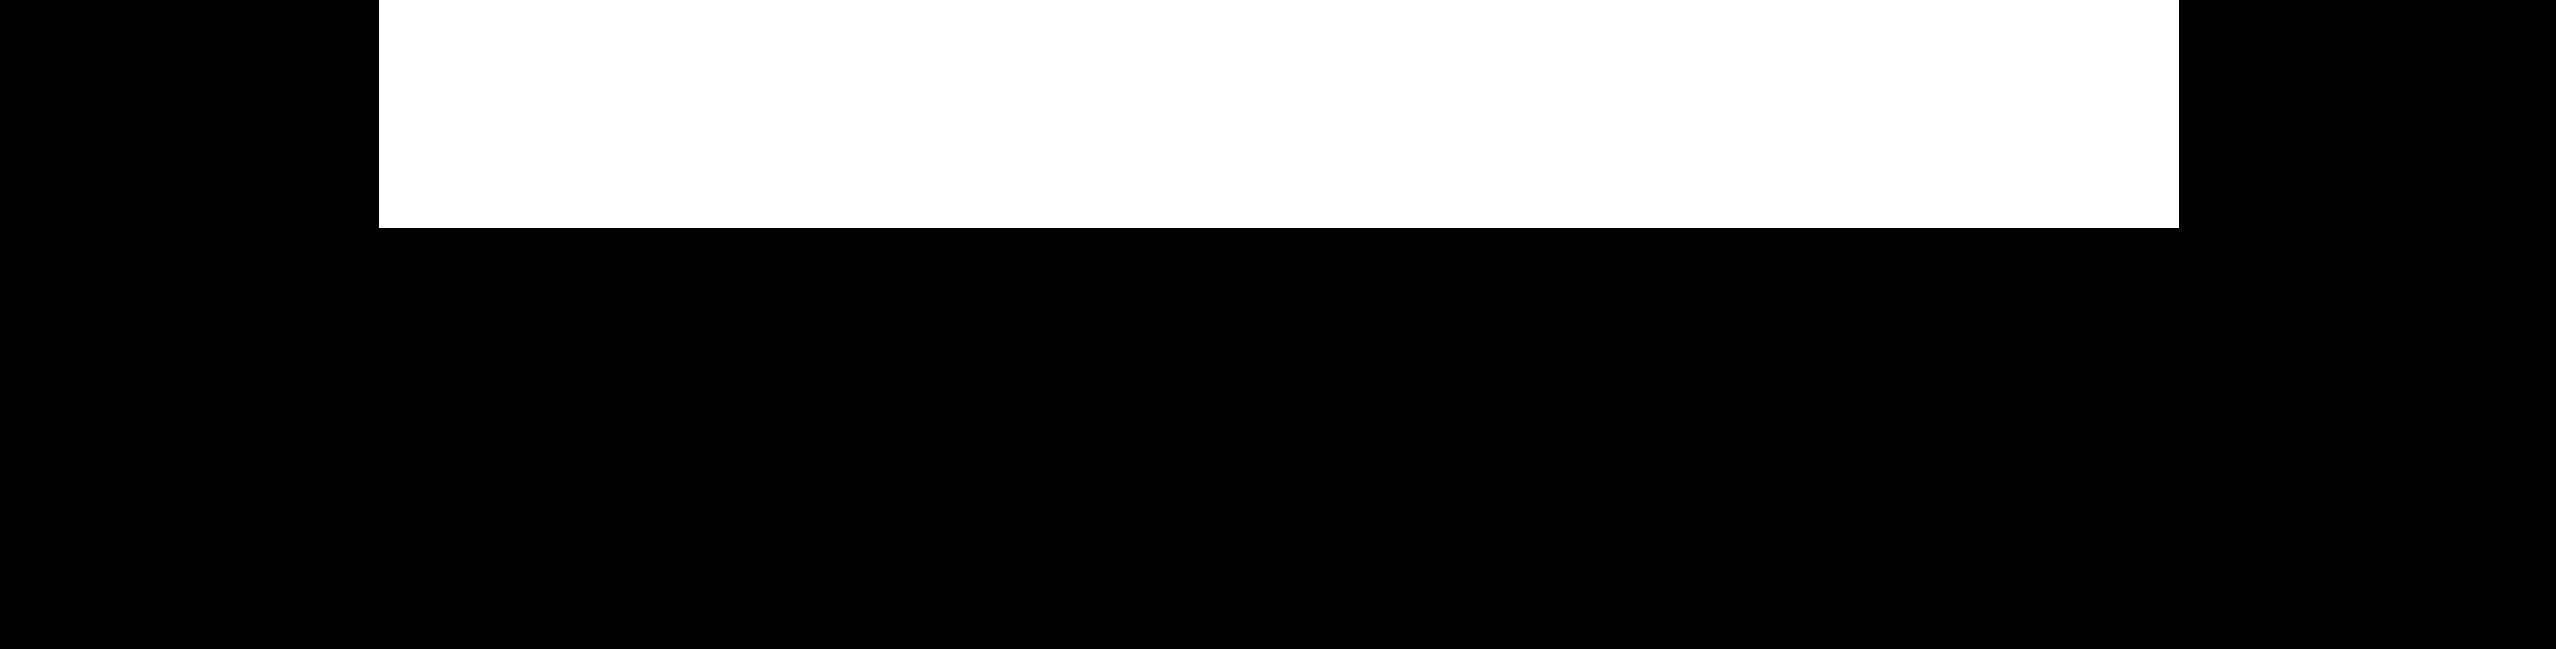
import math
import cairo



def draw(context):
    context.set_source_rgb(0, 0, 0)
    context.paint()
    context.set_source_rgb(1, 1, 1)
    context.rectangle(379, 0, 1800, 228)
    context.fill()


surface = cairo.ImageSurface(cairo.Format.RGB24, 2556, 649)
context = cairo.Context(surface)
options = cairo.FontOptions()
options.set_hint_metrics(cairo.HintMetrics.OFF)
options.set_hint_style(cairo.HintStyle.NONE)
context.set_font_options(options)
context.set_miter_limit(4)
draw(context)
surface.write_to_png("out.png")
